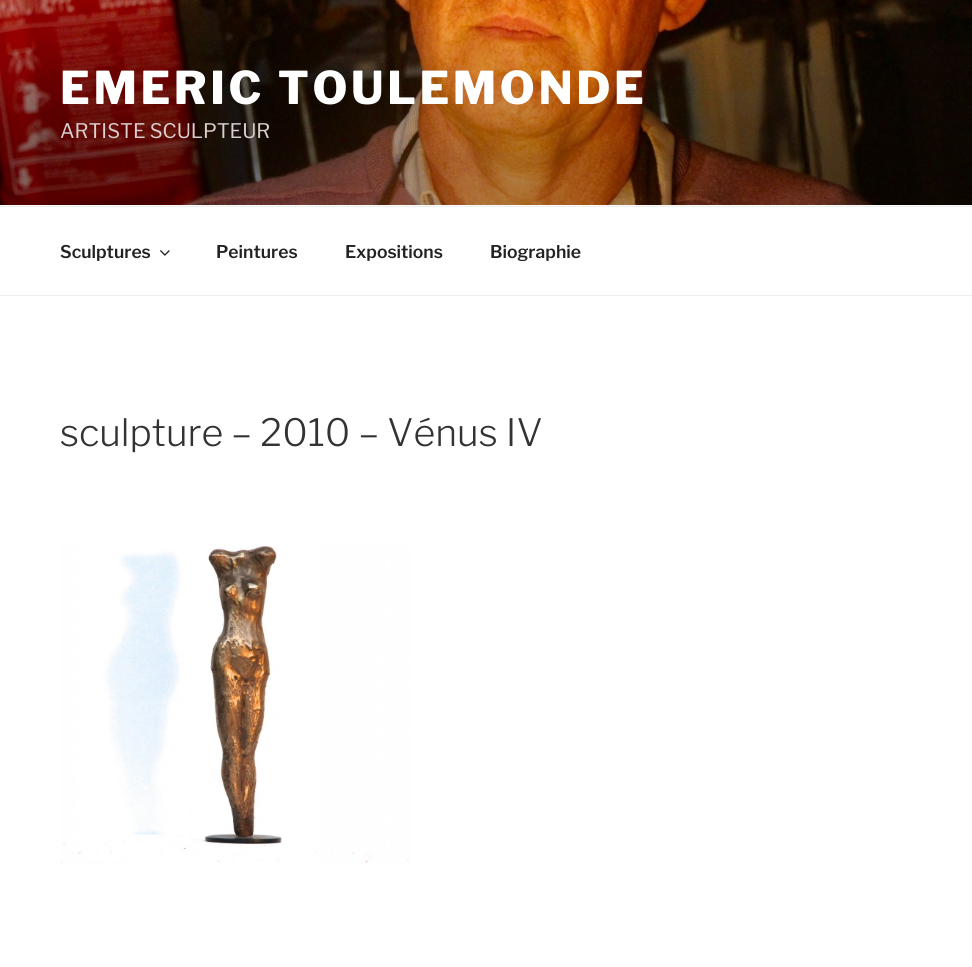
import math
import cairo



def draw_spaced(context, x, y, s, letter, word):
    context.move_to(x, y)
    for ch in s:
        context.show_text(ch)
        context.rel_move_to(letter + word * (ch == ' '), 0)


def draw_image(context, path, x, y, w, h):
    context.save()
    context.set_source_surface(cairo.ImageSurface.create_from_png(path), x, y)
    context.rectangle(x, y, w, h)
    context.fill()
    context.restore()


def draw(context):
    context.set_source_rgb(1, 1, 1)
    context.paint()
    context.set_source_rgb(250 / 255, 250 / 255, 250 / 255)
    context.rectangle(0, 205, 972, 1)
    context.fill()
    draw_image(context, "images/1.png", 0, 0, 972, 205)
    context.set_source_rgb(238 / 255, 238 / 255, 238 / 255)
    context.rectangle(0, 206, 972, 1)
    context.fill()
    context.rectangle(0, 295, 972, 1)
    context.fill()
    draw_image(context, "images/2.png", 160, 250, 10, 6)
    draw_image(context, "images/3.png", 60, 545, 351, 319)
    context.select_font_face("Libre Franklin ExtraBold")
    context.set_font_size(45)
    context.set_source_rgb(1, 1, 1)
    draw_spaced(context, 60, 104, "EMERIC TOULEMONDE", 3.6, 0)
    context.select_font_face("Libre Franklin")
    context.set_font_size(20)
    context.set_source_rgb(218 / 255, 206 / 255, 206 / 255)
    context.move_to(60, 138)
    context.show_text("ARTISTE SCULPTEUR")
    context.select_font_face("Libre Franklin SemiBold")
    context.set_font_size(17.5)
    context.set_source_rgb(34 / 255, 34 / 255, 34 / 255)
    context.move_to(60, 258)
    context.show_text("Sculptures")
    context.move_to(216, 258)
    context.show_text("Peintures")
    context.move_to(345, 258)
    context.show_text("Expositions")
    context.move_to(490, 258)
    context.show_text("Biographie")
    context.select_font_face("Libre Franklin Light")
    context.set_font_size(37.5)
    context.set_source_rgb(51 / 255, 51 / 255, 51 / 255)
    context.move_to(60, 446)
    context.show_text("sculpture – 2010 – Vénus IV")


surface = cairo.ImageSurface(cairo.Format.RGB24, 972, 967)
context = cairo.Context(surface)
options = cairo.FontOptions()
options.set_hint_metrics(cairo.HintMetrics.OFF)
options.set_hint_style(cairo.HintStyle.NONE)
context.set_font_options(options)
context.set_miter_limit(4)
draw(context)
surface.write_to_png("out.png")
